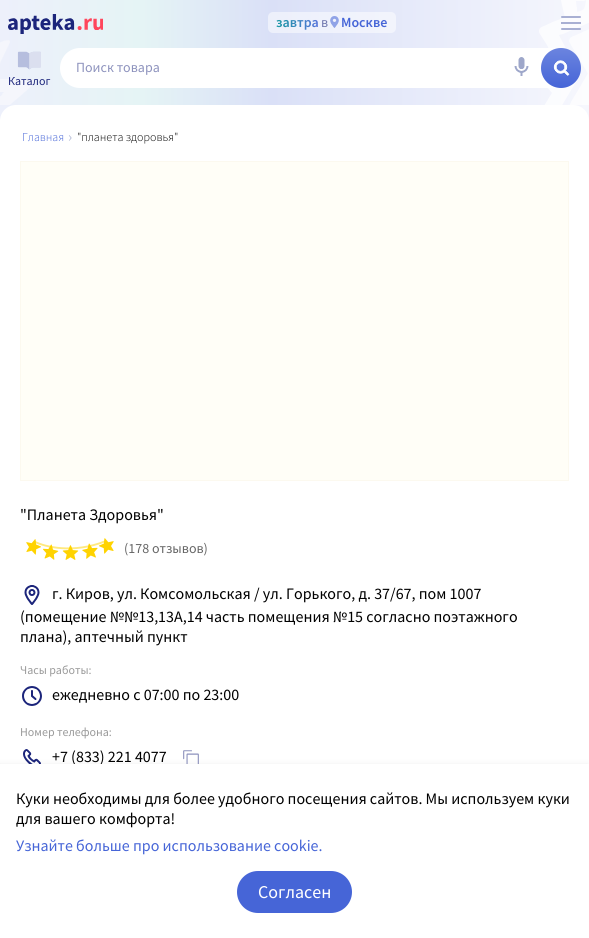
import math
import cairo



def rounded_rect(context, x, y, w, h, r):
    context.new_sub_path()
    for i, (u, v) in enumerate([(x + w - r, y + h - r), (x + r, y + h - r), (x + r, y + r), (x + w - r, y + r)]):
        context.arc(u, v, r, i * math.pi / 2, (i + 1) * math.pi / 2)
    context.close_path()


def draw_shadow(context, x, y, w, h, r, blur, alpha):
    context.push_group_with_content(cairo.Content.ALPHA)
    context.set_operator(cairo.Operator.SOURCE)
    for i in range(15, -16, -2):
        e = blur * i / 6
        if min(w, h) + 2 * e > 0:
            context.set_source_rgba(0, 0, 0, alpha * math.erfc((i - 1) / 8.5) / 2)
            rounded_rect(context, x - e, y - e, w + 2 * e, h + 2 * e, max(0, min(r + e + blur * .6, min(w, h) / 2 + e)))
            context.fill()
    context.mask(context.pop_group())


def draw_image(context, path, x, y, w, h):
    context.save()
    context.set_source_surface(cairo.ImageSurface.create_from_png(path), x, y)
    context.rectangle(x, y, w, h)
    context.fill()
    context.restore()


def draw(context):
    context.set_source_rgb(1, 1, 1)
    context.paint()
    gradient = cairo.LinearGradient(0, 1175, 589, 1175)
    gradient.add_color_stop_rgba(0, 237 / 255, 240 / 255, 251 / 255, 1)
    gradient.add_color_stop_rgba(0.24, 229 / 255, 244 / 255, 245 / 255, 1)
    gradient.add_color_stop_rgba(0.46, 218 / 255, 224 / 255, 247 / 255, 1)
    gradient.add_color_stop_rgba(1, 246 / 255, 247 / 255, 253 / 255, 1)
    context.set_source(gradient)
    context.rectangle(0, 0, 589, 121)
    context.fill()
    draw_image(context, "images/1.png", 0, 40, 33, 65)
    draw_image(context, "images/2.png", 539, 0, 50, 105)
    draw_image(context, "images/3.png", 8, 14, 95, 20)
    context.set_source_rgba(1, 1, 1, 0.5)
    rounded_rect(context, 268, 12, 128, 21, 5)
    context.fill()
    draw_image(context, "images/4.png", 330, 16, 9, 12)
    gradient = cairo.LinearGradient(571, 16, 571, 30)
    gradient.add_color_stop_rgba(0.43, 169 / 255, 176 / 255, 211 / 255, 0)
    gradient.add_color_stop_rgba(0.43, 169 / 255, 176 / 255, 211 / 255, 1)
    gradient.add_color_stop_rgba(0.57, 169 / 255, 176 / 255, 211 / 255, 1)
    gradient.add_color_stop_rgba(0.57, 169 / 255, 176 / 255, 211 / 255, 0)
    gradient.add_color_stop_rgba(1, 0, 0, 0, 0)
    context.set_source(gradient)
    context.rectangle(561, 22, 20, 2)
    context.fill()
    context.set_source_rgb(169 / 255, 176 / 255, 211 / 255)
    rounded_rect(context, 561, 16, 20, 2, 1)
    context.fill()
    rounded_rect(context, 561, 28, 20, 2, 1)
    context.fill()
    context.set_source_rgb(1, 1, 1)
    context.new_path()
    context.move_to(80, 48)
    context.line_to(561, 48)
    context.line_to(561, 88)
    context.line_to(80, 88)
    context.curve_to(69, 88, 60, 79, 60, 68)
    context.curve_to(60, 57, 69, 48, 80, 48)
    context.close_path()
    context.fill()
    draw_image(context, "images/5.png", 514, 57, 15, 19)
    gradient = cairo.LinearGradient(561, 48, 561, 88)
    gradient.add_color_stop_rgba(0, 107 / 255, 132 / 255, 223 / 255, 1)
    gradient.add_color_stop_rgba(1, 70 / 255, 101 / 255, 215 / 255, 1)
    context.set_source(gradient)
    context.arc(561, 68, 20, 0, 2 * math.pi)
    context.fill()
    draw_image(context, "images/6.png", 553, 60, 17, 16)
    draw_image(context, "images/7.png", 17, 51, 24, 19)
    context.set_source_rgb(1, 1, 1)
    context.new_path()
    context.move_to(16, 105)
    context.line_to(573, 105)
    context.curve_to(582, 105, 589, 112, 589, 121)
    context.line_to(589, 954)
    context.line_to(0, 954)
    context.line_to(0, 121)
    context.curve_to(0, 112, 7, 105, 16, 105)
    context.close_path()
    context.fill()
    context.set_source_rgb(1, 254 / 255, 247 / 255)
    context.rectangle(20.5, 161.5, 548, 319)
    context.fill_preserve()
    context.set_source_rgb(252 / 255, 249 / 255, 239 / 255)
    context.set_line_width(1)
    context.stroke()
    draw_image(context, "images/8.png", 26, 538, 88, 22)
    draw_image(context, "images/9.png", 24, 585, 16, 20)
    draw_image(context, "images/10.png", 22, 686, 20, 20)
    draw_image(context, "images/11.png", 23, 749, 18, 15)
    draw_image(context, "images/12.png", 183, 750, 16, 14)
    context.set_source_rgb(0, 0, 0)
    draw_shadow(context, -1, 763, 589, 174, 0, 2.5, 0.05)
    context.select_font_face("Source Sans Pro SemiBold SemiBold")
    context.set_font_size(14)
    gradient = cairo.LinearGradient(276, 23, 319, 23)
    gradient.add_color_stop_rgba(0, 25 / 255, 152 / 255, 163 / 255, 1)
    gradient.add_color_stop_rgba(1, 88 / 255, 116 / 255, 219 / 255, 1)
    context.set_source(gradient)
    context.move_to(276, 27)
    context.show_text("завтра")
    context.select_font_face("Source Sans Pro")
    context.set_source_rgb(112 / 255, 119 / 255, 174 / 255)
    context.move_to(321, 27)
    context.show_text("в")
    context.select_font_face("Source Sans Pro SemiBold SemiBold")
    context.set_source_rgb(70 / 255, 101 / 255, 215 / 255)
    context.move_to(341, 27)
    context.show_text("Москве")
    context.select_font_face("Source Sans Pro")
    context.set_source_rgb(141 / 255, 146 / 255, 189 / 255)
    context.move_to(76, 72)
    context.show_text("Поиск товара")
    context.set_font_size(12)
    context.set_source_rgb(28 / 255, 37 / 255, 123 / 255)
    context.move_to(8, 85)
    context.show_text("Каталог")
    context.select_font_face("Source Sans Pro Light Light")
    context.set_source_rgb(70 / 255, 101 / 255, 215 / 255)
    context.move_to(22, 141)
    context.show_text("Главная")
    context.set_font_size(16)
    context.set_source_rgb(158 / 255, 167 / 255, 202 / 255)
    context.move_to(68, 142)
    context.show_text("›")
    context.set_font_size(12)
    context.set_source_rgb(0, 0, 0)
    context.move_to(77, 141)
    context.show_text("\"планета здоровья\"")
    context.select_font_face("Source Sans Pro")
    context.set_font_size(16)
    context.move_to(20, 520)
    context.show_text("\"Планета Здоровья\"")
    context.set_font_size(14)
    context.set_source_rgb(102 / 255, 102 / 255, 102 / 255)
    context.move_to(124, 553)
    context.show_text("(178 отзывов)")
    context.set_font_size(16)
    context.set_source_rgb(0, 0, 0)
    context.move_to(52, 599)
    context.show_text("г. Киров, ул. Комсомольская / ул. Горького, д. 37/67, пом 1007")
    context.move_to(20, 622)
    context.show_text("(помещение №№13,13А,14 часть помещения №15 согласно поэтажного")
    context.move_to(20, 642)
    context.show_text("плана), аптечный пункт")
    context.set_font_size(12)
    context.set_source_rgb(153 / 255, 153 / 255, 153 / 255)
    context.move_to(20, 674)
    context.show_text("Часы работы:")
    context.set_font_size(16)
    context.set_source_rgb(0, 0, 0)
    context.move_to(52, 700)
    context.show_text("ежедневно с 07:00 по 23:00")
    context.set_font_size(12)
    context.set_source_rgb(153 / 255, 153 / 255, 153 / 255)
    context.move_to(20, 736)
    context.show_text("Номер телефона:")
    context.set_font_size(16)
    context.set_source_rgb(0, 0, 0)
    context.move_to(52, 762)
    context.show_text("+7 (833) 221 4077")
    context.set_source_rgb(1, 1, 1)
    context.rectangle(0, 764, 589, 174)
    context.fill()
    context.set_source_rgb(0, 0, 0)
    context.move_to(16, 804)
    context.show_text("Куки необходимы для более удобного посещения сайтов. Мы используем куки")
    context.move_to(16, 824)
    context.show_text("для вашего комфорта!")
    context.set_source_rgb(70 / 255, 101 / 255, 215 / 255)
    context.move_to(16, 851)
    context.show_text("Узнайте больше про использование cookie.")
    rounded_rect(context, 237, 871, 115, 42, 21)
    context.fill()
    context.set_font_size(18)
    context.set_source_rgb(1, 1, 1)
    context.move_to(258, 898)
    context.show_text("Согласен")


surface = cairo.ImageSurface(cairo.Format.RGB24, 589, 938)
context = cairo.Context(surface)
options = cairo.FontOptions()
options.set_hint_metrics(cairo.HintMetrics.OFF)
options.set_hint_style(cairo.HintStyle.NONE)
context.set_font_options(options)
context.set_miter_limit(4)
draw(context)
surface.write_to_png("out.png")
